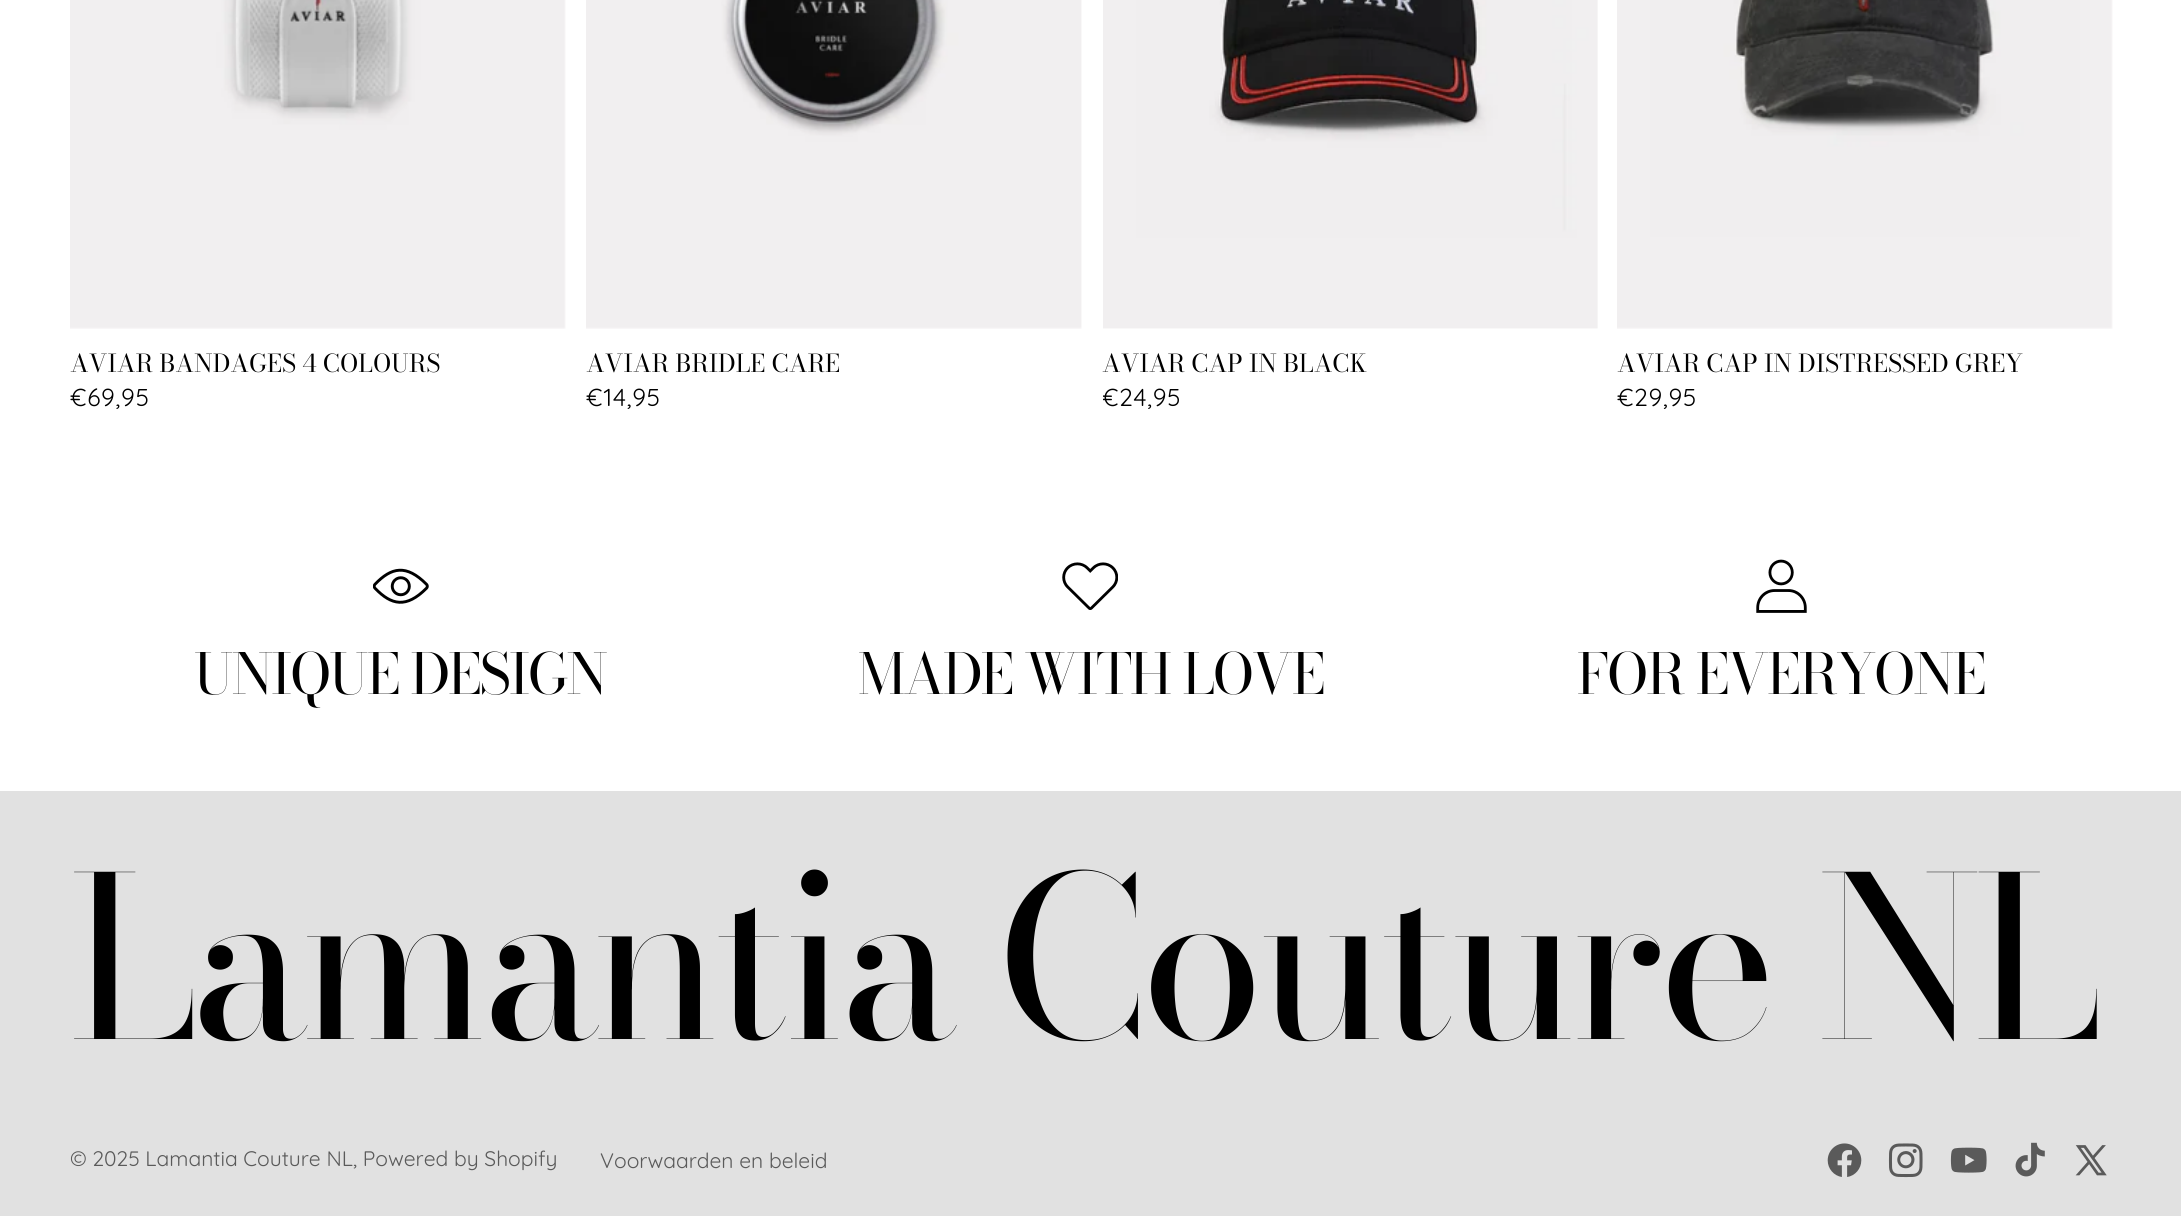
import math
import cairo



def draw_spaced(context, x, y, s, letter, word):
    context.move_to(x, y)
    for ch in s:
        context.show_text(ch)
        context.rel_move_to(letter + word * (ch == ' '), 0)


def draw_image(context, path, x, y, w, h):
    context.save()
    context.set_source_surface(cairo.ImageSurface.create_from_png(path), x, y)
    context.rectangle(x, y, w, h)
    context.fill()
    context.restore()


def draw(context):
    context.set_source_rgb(1, 1, 1)
    context.paint()
    draw_image(context, "images/1.png", 70, 0, 496, 329)
    draw_image(context, "images/2.png", 586, 0, 496, 329)
    draw_image(context, "images/3.png", 1103, 0, 495, 329)
    draw_image(context, "images/4.png", 1617, 0, 496, 329)
    draw_image(context, "images/5.png", 373, 568, 56, 36)
    draw_image(context, "images/6.png", 1062, 562, 56, 48)
    draw_image(context, "images/7.png", 1756, 559, 51, 54)
    context.set_source_rgb(225 / 255, 225 / 255, 225 / 255)
    context.rectangle(0, 791, 2181, 425)
    context.fill()
    draw_image(context, "images/8.png", 1827, 1143, 35, 34)
    draw_image(context, "images/9.png", 1888, 1143, 35, 35)
    draw_image(context, "images/10.png", 1950, 1147, 37, 26)
    draw_image(context, "images/11.png", 2015, 1142, 30, 35)
    draw_image(context, "images/12.png", 2075, 1145, 32, 31)
    context.select_font_face("Bodoni Moda")
    context.set_font_size(24.5)
    context.set_source_rgb(0, 0, 0)
    context.move_to(70, 372)
    context.show_text("AVIAR BANDAGES 4 COLOURS")
    context.select_font_face("Quicksand")
    draw_spaced(context, 70, 406, "€69,95", 0.75, 0)
    context.select_font_face("Bodoni Moda")
    context.move_to(586, 372)
    context.show_text("AVIAR BRIDLE CARE")
    context.select_font_face("Quicksand")
    draw_spaced(context, 586, 406, "€14,95", 0.75, 0)
    context.select_font_face("Bodoni Moda")
    context.move_to(1102, 372)
    context.show_text("AVIAR CAP IN BLACK")
    context.save()
    context.rectangle(1103, 0, 493, 411)
    context.clip()
    context.select_font_face("Quicksand")
    draw_spaced(context, 1102, 406, "€24,95", 0.75, 0)
    context.restore()
    context.move_to(1617, 372)
    context.show_text("AVIAR CAP IN DISTRESSED GREY")
    context.select_font_face("Quicksand")
    draw_spaced(context, 1617, 406, "€29,95", 0.75, 0)
    context.select_font_face("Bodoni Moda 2")
    context.set_font_size(56)
    draw_spaced(context, 194, 694, "UNIQUE DESIGN", -1.75, 0)
    draw_spaced(context, 858, 694, "MADE WITH LOVE", -1.75, 0)
    draw_spaced(context, 1577, 694, "FOR EVERYONE", -1.75, 0)
    context.select_font_face("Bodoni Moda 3")
    context.set_font_size(223)
    draw_spaced(context, 70, 1039, "Lamantia Couture NL", -6.7, 0)
    context.select_font_face("Quicksand")
    context.set_font_size(21)
    context.set_source_rgb(90 / 255, 90 / 255, 90 / 255)
    context.move_to(70, 1166)
    context.show_text("© 2025 Lamantia Couture NL, Powered by Shopify")
    context.move_to(600, 1168)
    context.show_text("Voorwaarden en beleid")


surface = cairo.ImageSurface(cairo.Format.RGB24, 2181, 1216)
context = cairo.Context(surface)
options = cairo.FontOptions()
options.set_hint_metrics(cairo.HintMetrics.OFF)
options.set_hint_style(cairo.HintStyle.NONE)
context.set_font_options(options)
context.set_miter_limit(4)
draw(context)
surface.write_to_png("out.png")
